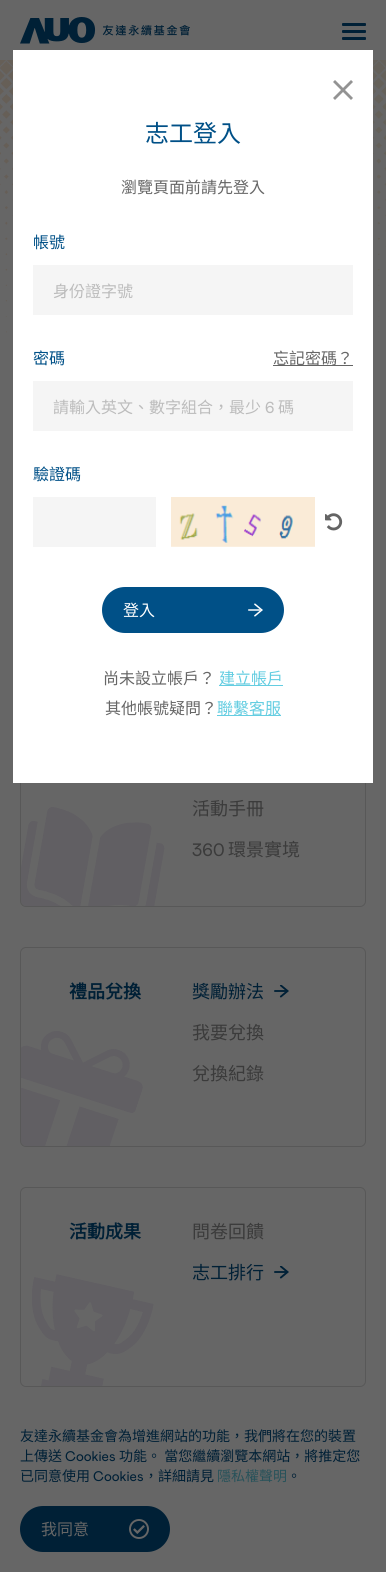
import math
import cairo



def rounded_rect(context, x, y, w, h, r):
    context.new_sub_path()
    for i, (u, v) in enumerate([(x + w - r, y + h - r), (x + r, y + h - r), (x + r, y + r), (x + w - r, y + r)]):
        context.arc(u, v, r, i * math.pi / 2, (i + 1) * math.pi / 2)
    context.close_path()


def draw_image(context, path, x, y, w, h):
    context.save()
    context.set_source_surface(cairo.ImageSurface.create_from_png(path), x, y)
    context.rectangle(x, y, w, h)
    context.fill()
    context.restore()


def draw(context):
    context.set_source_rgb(102 / 255, 102 / 255, 102 / 255)
    context.paint()
    draw_image(context, "images/1.png", 20, 17, 170, 27)
    context.set_source_rgb(0, 32 / 255, 54 / 255)
    rounded_rect(context, 342, 23, 24, 3, 1)
    context.fill()
    rounded_rect(context, 342, 30, 24, 3, 1)
    context.fill()
    rounded_rect(context, 342, 37, 24, 3, 1)
    context.fill()
    draw_image(context, "images/6.png", 0, 60, 386, 273)
    draw_image(context, "images/7.png", 21, 807, 144, 99)
    rounded_rect(context, 20.5, 682.5, 345, 224, 5.5)
    context.set_source_rgb(88 / 255, 88 / 255, 88 / 255)
    context.set_line_width(1)
    context.stroke()
    context.set_source_rgb(1, 1, 1)
    context.rectangle(13, 50, 360, 733)
    context.fill()
    draw_image(context, "images/2.png", 333, 80, 20, 20)
    context.set_source_rgb(245 / 255, 245 / 255, 245 / 255)
    context.rectangle(33, 265, 320, 50)
    context.fill()
    context.set_source_rgb(100 / 255, 100 / 255, 100 / 255)
    context.rectangle(273, 365, 80, 1)
    context.fill()
    context.set_source_rgb(245 / 255, 245 / 255, 245 / 255)
    context.rectangle(33, 381, 320, 50)
    context.fill()
    context.rectangle(33, 497, 123, 50)
    context.fill()
    draw_image(context, "images/3.png", 171, 497, 144, 50)
    draw_image(context, "images/4.png", 325, 513, 18, 18)
    context.set_source_rgb(0, 80 / 255, 135 / 255)
    rounded_rect(context, 102, 587, 182, 46, 23)
    context.fill()
    draw_image(context, "images/5.png", 248, 603, 15, 14)
    context.set_source_rgb(100 / 255, 205 / 255, 225 / 255)
    context.rectangle(219, 685, 64, 1)
    context.fill()
    context.rectangle(217, 715, 64, 1)
    context.fill()
    draw_image(context, "images/8.png", 21, 1031, 122, 115)
    rounded_rect(context, 20.5, 947.5, 345, 199, 5.5)
    context.set_source_rgb(88 / 255, 88 / 255, 88 / 255)
    context.stroke()
    draw_image(context, "images/9.png", 274, 985, 15, 13)
    draw_image(context, "images/10.png", 32, 1274, 122, 112)
    rounded_rect(context, 20.5, 1187.5, 345, 199, 5.5)
    context.stroke()
    draw_image(context, "images/9.png", 274, 1266, 15, 13)
    context.set_source_rgb(0, 32 / 255, 54 / 255)
    rounded_rect(context, 20, 1506, 150, 46, 23)
    context.fill()
    draw_image(context, "images/11.png", 129, 1519, 20, 20)
    context.select_font_face("Noto Sans TC Thin")
    context.set_font_size(24)
    context.set_source_rgb(0, 80 / 255, 135 / 255)
    context.move_to(145, 142)
    context.show_text("志工登入")
    context.set_font_size(16)
    context.set_source_rgb(102 / 255, 102 / 255, 102 / 255)
    context.move_to(121, 193)
    context.show_text("瀏覽頁面前請先登入")
    context.set_source_rgb(0, 80 / 255, 135 / 255)
    context.move_to(33, 248)
    context.show_text("帳號")
    context.set_source_rgb(188 / 255, 188 / 255, 188 / 255)
    context.move_to(53, 297)
    context.show_text("身份證字號")
    context.set_source_rgb(0, 80 / 255, 135 / 255)
    context.move_to(33, 364)
    context.show_text("密碼")
    context.set_source_rgb(102 / 255, 102 / 255, 102 / 255)
    context.move_to(273, 364)
    context.show_text("忘記密碼？")
    context.set_source_rgb(188 / 255, 188 / 255, 188 / 255)
    context.move_to(53, 413)
    context.show_text("請輸入英文、數字組合，最少")
    context.select_font_face("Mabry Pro")
    context.move_to(265, 413)
    context.show_text("6")
    context.select_font_face("Noto Sans TC Thin")
    context.move_to(278, 413)
    context.show_text("碼")
    context.set_source_rgb(0, 80 / 255, 135 / 255)
    context.move_to(33, 480)
    context.show_text("驗證碼")
    context.set_source_rgb(1, 1, 1)
    context.move_to(123, 616)
    context.show_text("登入")
    context.set_source_rgb(102 / 255, 102 / 255, 102 / 255)
    context.move_to(103, 684)
    context.show_text("尚未設立帳戶？")
    context.set_source_rgb(100 / 255, 205 / 255, 225 / 255)
    context.move_to(219, 684)
    context.show_text("建立帳戶")
    context.set_source_rgb(102 / 255, 102 / 255, 102 / 255)
    context.move_to(105, 714)
    context.show_text("其他帳號疑問？")
    context.set_source_rgb(100 / 255, 205 / 255, 225 / 255)
    context.move_to(217, 714)
    context.show_text("聯繫客服")
    context.set_font_size(18)
    context.set_source_rgb(59 / 255, 59 / 255, 59 / 255)
    context.move_to(192, 815)
    context.show_text("活動手冊")
    context.select_font_face("Mabry Pro")
    context.move_to(192, 856)
    context.show_text("360")
    context.select_font_face("Noto Sans TC Thin")
    context.move_to(228, 856)
    context.show_text("環景實境")
    context.select_font_face("Noto Sans TC", cairo.FontSlant.NORMAL, cairo.FontWeight.BOLD)
    context.set_source_rgb(0, 32 / 255, 54 / 255)
    context.move_to(69, 998)
    context.show_text("禮品兌換")
    context.select_font_face("Noto Sans TC Thin")
    context.move_to(192, 998)
    context.show_text("獎勵辦法")
    context.set_source_rgb(59 / 255, 59 / 255, 59 / 255)
    context.move_to(192, 1039)
    context.show_text("我要兌換")
    context.move_to(192, 1080)
    context.show_text("兌換紀錄")
    context.select_font_face("Noto Sans TC", cairo.FontSlant.NORMAL, cairo.FontWeight.BOLD)
    context.set_source_rgb(0, 32 / 255, 54 / 255)
    context.move_to(69, 1238)
    context.show_text("活動成果")
    context.select_font_face("Noto Sans TC Thin")
    context.set_source_rgb(59 / 255, 59 / 255, 59 / 255)
    context.move_to(192, 1238)
    context.show_text("問卷回饋")
    context.set_source_rgb(0, 32 / 255, 54 / 255)
    context.move_to(192, 1279)
    context.show_text("志工排行")
    context.set_font_size(14)
    context.move_to(20, 1441)
    context.show_text("友達永續基金會為增進網站的功能，我們將在您的裝置")
    context.move_to(20, 1461)
    context.show_text("上傳送")
    context.select_font_face("Mabry Pro")
    context.move_to(65, 1461)
    context.show_text("Cookies")
    context.select_font_face("Noto Sans TC Thin")
    context.move_to(119, 1461)
    context.show_text("功能。 當您繼續瀏覽本網站，將推定您")
    context.move_to(20, 1481)
    context.show_text("已同意使用")
    context.select_font_face("Mabry Pro")
    context.move_to(93, 1481)
    context.show_text("Cookies")
    context.select_font_face("Noto Sans TC Thin")
    context.move_to(144, 1481)
    context.show_text("，詳細請見")
    context.set_source_rgb(40 / 255, 82 / 255, 90 / 255)
    context.move_to(217, 1481)
    context.show_text("隱私權聲明")
    context.set_source_rgb(0, 32 / 255, 54 / 255)
    context.move_to(287, 1481)
    context.show_text("。")
    context.set_font_size(16)
    context.set_source_rgb(102 / 255, 102 / 255, 102 / 255)
    context.move_to(41, 1535)
    context.show_text("我同意")


surface = cairo.ImageSurface(cairo.Format.RGB24, 386, 1572)
context = cairo.Context(surface)
options = cairo.FontOptions()
options.set_hint_metrics(cairo.HintMetrics.OFF)
options.set_hint_style(cairo.HintStyle.NONE)
context.set_font_options(options)
context.set_miter_limit(4)
draw(context)
surface.write_to_png("out.png")
